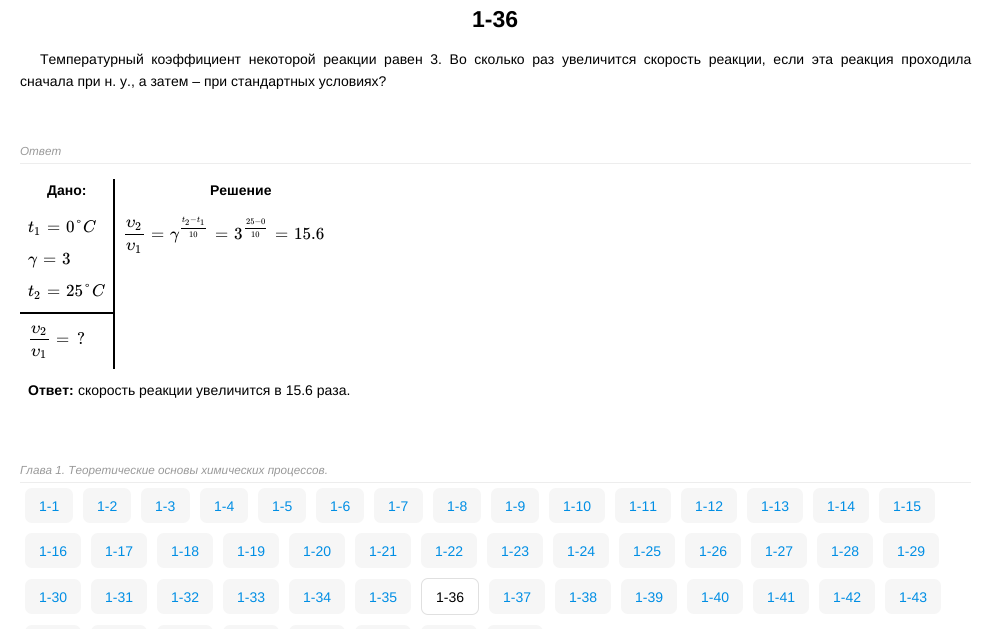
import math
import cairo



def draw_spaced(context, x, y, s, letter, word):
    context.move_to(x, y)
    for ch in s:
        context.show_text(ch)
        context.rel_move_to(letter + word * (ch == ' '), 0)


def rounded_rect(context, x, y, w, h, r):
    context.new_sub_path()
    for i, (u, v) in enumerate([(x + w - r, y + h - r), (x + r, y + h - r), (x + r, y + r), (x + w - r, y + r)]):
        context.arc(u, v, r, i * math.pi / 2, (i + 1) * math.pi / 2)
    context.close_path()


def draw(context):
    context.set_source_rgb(1, 1, 1)
    context.paint()
    context.set_source_rgb(237 / 255, 237 / 255, 237 / 255)
    context.rectangle(20, 163, 951, 1)
    context.fill()
    context.set_source_rgb(0, 0, 0)
    context.rectangle(113, 179, 2, 190)
    context.fill()
    context.rectangle(20, 312, 93, 2)
    context.fill()
    context.rectangle(125, 234, 19, 1)
    context.fill()
    context.rectangle(181, 228, 25, 1)
    context.fill()
    context.rectangle(245, 228, 21, 1)
    context.fill()
    context.rectangle(30, 339, 19, 1)
    context.fill()
    context.set_source_rgb(237 / 255, 237 / 255, 237 / 255)
    context.rectangle(20, 482, 951, 1)
    context.fill()
    context.set_source_rgb(246 / 255, 246 / 255, 246 / 255)
    rounded_rect(context, 25, 488, 48, 35, 7)
    context.fill()
    rounded_rect(context, 83, 488, 48, 35, 7)
    context.fill()
    rounded_rect(context, 141, 488, 49, 35, 7)
    context.fill()
    rounded_rect(context, 200, 488, 48, 35, 7)
    context.fill()
    rounded_rect(context, 258, 488, 48, 35, 7)
    context.fill()
    rounded_rect(context, 316, 488, 48, 35, 7)
    context.fill()
    rounded_rect(context, 374, 488, 49, 35, 7)
    context.fill()
    rounded_rect(context, 433, 488, 48, 35, 7)
    context.fill()
    rounded_rect(context, 491, 488, 48, 35, 7)
    context.fill()
    rounded_rect(context, 549, 488, 56, 35, 7)
    context.fill()
    rounded_rect(context, 615, 488, 56, 35, 7)
    context.fill()
    rounded_rect(context, 681, 488, 56, 35, 7)
    context.fill()
    rounded_rect(context, 747, 488, 56, 35, 7)
    context.fill()
    rounded_rect(context, 813, 488, 56, 35, 7)
    context.fill()
    rounded_rect(context, 879, 488, 56, 35, 7)
    context.fill()
    rounded_rect(context, 25, 533, 56, 35, 7)
    context.fill()
    rounded_rect(context, 91, 533, 56, 35, 7)
    context.fill()
    rounded_rect(context, 157, 533, 56, 35, 7)
    context.fill()
    rounded_rect(context, 223, 533, 56, 35, 7)
    context.fill()
    rounded_rect(context, 289, 533, 56, 35, 7)
    context.fill()
    rounded_rect(context, 355, 533, 56, 35, 7)
    context.fill()
    rounded_rect(context, 421, 533, 56, 35, 7)
    context.fill()
    rounded_rect(context, 487, 533, 56, 35, 7)
    context.fill()
    rounded_rect(context, 553, 533, 56, 35, 7)
    context.fill()
    rounded_rect(context, 619, 533, 56, 35, 7)
    context.fill()
    rounded_rect(context, 685, 533, 56, 35, 7)
    context.fill()
    rounded_rect(context, 751, 533, 56, 35, 7)
    context.fill()
    rounded_rect(context, 817, 533, 56, 35, 7)
    context.fill()
    rounded_rect(context, 883, 533, 56, 35, 7)
    context.fill()
    rounded_rect(context, 25, 579, 56, 35, 7)
    context.fill()
    rounded_rect(context, 91, 579, 56, 35, 7)
    context.fill()
    rounded_rect(context, 157, 579, 56, 35, 7)
    context.fill()
    rounded_rect(context, 223, 579, 56, 35, 7)
    context.fill()
    rounded_rect(context, 289, 579, 56, 35, 7)
    context.fill()
    rounded_rect(context, 355, 579, 56, 35, 7)
    context.fill()
    rounded_rect(context, 421.5, 578.5, 57, 36, 6.5)
    context.set_source_rgb(224 / 255, 224 / 255, 224 / 255)
    context.set_line_width(1)
    context.stroke()
    context.set_source_rgb(246 / 255, 246 / 255, 246 / 255)
    rounded_rect(context, 489, 579, 56, 35, 7)
    context.fill()
    rounded_rect(context, 555, 579, 56, 35, 7)
    context.fill()
    rounded_rect(context, 621, 579, 56, 35, 7)
    context.fill()
    rounded_rect(context, 687, 579, 56, 35, 7)
    context.fill()
    rounded_rect(context, 753, 579, 56, 35, 7)
    context.fill()
    rounded_rect(context, 819, 579, 56, 35, 7)
    context.fill()
    rounded_rect(context, 885, 579, 56, 35, 7)
    context.fill()
    rounded_rect(context, 25, 625, 56, 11, 7)
    context.fill()
    rounded_rect(context, 91, 625, 56, 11, 7)
    context.fill()
    rounded_rect(context, 157, 625, 56, 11, 7)
    context.fill()
    rounded_rect(context, 223, 625, 56, 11, 7)
    context.fill()
    rounded_rect(context, 289, 625, 56, 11, 7)
    context.fill()
    rounded_rect(context, 355, 625, 56, 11, 7)
    context.fill()
    rounded_rect(context, 421, 625, 56, 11, 7)
    context.fill()
    rounded_rect(context, 487, 625, 56, 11, 7)
    context.fill()
    context.select_font_face("Liberation Sans", cairo.FontSlant.NORMAL, cairo.FontWeight.BOLD)
    context.set_font_size(23)
    context.set_source_rgb(0, 0, 0)
    context.move_to(472, 27)
    context.show_text("1-36")
    context.select_font_face("Liberation Sans")
    context.set_font_size(14)
    draw_spaced(context, 40, 64, "Температурный коэффициент некоторой реакции равен 3. Во сколько раз увеличится скорость реакции, если эта реакция проходила", 0, 3.75)
    context.move_to(20, 86)
    context.show_text("сначала при н. у., а затем – при стандартных условиях?")
    context.select_font_face("Liberation Sans", cairo.FontSlant.ITALIC)
    context.set_font_size(11.7)
    context.set_source_rgb(153 / 255, 153 / 255, 153 / 255)
    context.move_to(20, 155)
    context.show_text("Ответ")
    context.select_font_face("Liberation Sans", cairo.FontSlant.NORMAL, cairo.FontWeight.BOLD)
    context.set_font_size(14)
    context.set_source_rgb(0, 0, 0)
    context.move_to(47, 195)
    context.show_text("Дано:")
    context.move_to(210, 195)
    context.show_text("Решение")
    context.select_font_face("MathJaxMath", cairo.FontSlant.ITALIC)
    context.set_font_size(17)
    context.move_to(28, 232)
    context.show_text("t")
    context.select_font_face("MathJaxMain")
    context.set_font_size(12)
    context.move_to(34, 235)
    context.show_text("1")
    context.set_font_size(17)
    context.move_to(47, 232)
    context.show_text("=")
    context.move_to(66, 232)
    context.show_text("0°")
    context.select_font_face("MathJaxMath", cairo.FontSlant.ITALIC)
    context.move_to(83, 232)
    context.show_text("C")
    context.move_to(28, 264)
    context.show_text("γ")
    context.select_font_face("MathJaxMain")
    context.move_to(43, 264)
    context.show_text("=")
    context.move_to(62, 264)
    context.show_text("3")
    context.select_font_face("MathJaxMath", cairo.FontSlant.ITALIC)
    context.move_to(28, 296)
    context.show_text("t")
    context.select_font_face("MathJaxMain")
    context.set_font_size(12)
    context.move_to(34, 299)
    context.show_text("2")
    context.set_font_size(17)
    context.move_to(47, 296)
    context.show_text("=")
    context.move_to(66, 296)
    context.show_text("25°")
    context.select_font_face("MathJaxMath", cairo.FontSlant.ITALIC)
    context.move_to(92, 296)
    context.show_text("C")
    context.move_to(126, 227)
    context.show_text("υ")
    context.select_font_face("MathJaxMain")
    context.set_font_size(12)
    context.move_to(135, 230)
    context.show_text("2")
    context.select_font_face("MathJaxMath", cairo.FontSlant.ITALIC)
    context.set_font_size(17)
    context.move_to(126, 250)
    context.show_text("υ")
    context.select_font_face("MathJaxMain")
    context.set_font_size(12)
    context.move_to(135, 253)
    context.show_text("1")
    context.set_font_size(17)
    context.move_to(151, 239)
    context.show_text("=")
    context.select_font_face("MathJaxMath", cairo.FontSlant.ITALIC)
    context.move_to(170, 239)
    context.show_text("γ")
    context.set_font_size(8.5)
    context.move_to(182, 222)
    context.show_text("t")
    context.select_font_face("MathJaxMain")
    context.move_to(185, 225)
    context.show_text("2")
    context.move_to(190, 222)
    context.show_text("−")
    context.select_font_face("MathJaxMath", cairo.FontSlant.ITALIC)
    context.move_to(197, 222)
    context.show_text("t")
    context.select_font_face("MathJaxMain")
    context.move_to(200, 225)
    context.show_text("1")
    context.move_to(189, 237)
    context.show_text("10")
    context.set_font_size(17)
    context.move_to(215, 239)
    context.show_text("=")
    context.move_to(234, 239)
    context.show_text("3")
    context.set_font_size(8.5)
    context.move_to(246, 224)
    context.show_text("25−0")
    context.move_to(251, 237)
    context.show_text("10")
    context.set_font_size(17)
    context.move_to(275, 239)
    context.show_text("=")
    context.move_to(294, 239)
    context.show_text("15.6")
    context.select_font_face("MathJaxMath", cairo.FontSlant.ITALIC)
    context.move_to(31, 333)
    context.show_text("υ")
    context.select_font_face("MathJaxMain")
    context.set_font_size(12)
    context.move_to(40, 335)
    context.show_text("2")
    context.select_font_face("MathJaxMath", cairo.FontSlant.ITALIC)
    context.set_font_size(17)
    context.move_to(31, 356)
    context.show_text("υ")
    context.select_font_face("MathJaxMain")
    context.set_font_size(12)
    context.move_to(40, 358)
    context.show_text("1")
    context.set_font_size(17)
    context.move_to(56, 344)
    context.show_text("=")
    context.move_to(77, 344)
    context.show_text("?")
    context.select_font_face("Liberation Sans", cairo.FontSlant.NORMAL, cairo.FontWeight.BOLD)
    context.set_font_size(14)
    context.move_to(28, 395)
    context.show_text("Ответ:")
    context.select_font_face("Liberation Sans")
    context.move_to(78, 395)
    context.show_text("скорость реакции увеличится в 15.6 раза.")
    context.select_font_face("Liberation Sans", cairo.FontSlant.ITALIC)
    context.set_font_size(11.7)
    context.set_source_rgb(153 / 255, 153 / 255, 153 / 255)
    context.move_to(20, 474)
    context.show_text("Глава 1. Теоретические основы химических процессов.")
    context.select_font_face("Liberation Sans")
    context.set_font_size(14)
    context.set_source_rgb(0, 142 / 255, 228 / 255)
    context.move_to(39, 511)
    context.show_text("1-1")
    context.move_to(97, 511)
    context.show_text("1-2")
    context.move_to(155, 511)
    context.show_text("1-3")
    context.move_to(214, 511)
    context.show_text("1-4")
    context.move_to(272, 511)
    context.show_text("1-5")
    context.move_to(330, 511)
    context.show_text("1-6")
    context.move_to(388, 511)
    context.show_text("1-7")
    context.move_to(447, 511)
    context.show_text("1-8")
    context.move_to(505, 511)
    context.show_text("1-9")
    context.move_to(563, 511)
    context.show_text("1-10")
    context.move_to(629, 511)
    context.show_text("1-11")
    context.move_to(695, 511)
    context.show_text("1-12")
    context.move_to(761, 511)
    context.show_text("1-13")
    context.move_to(827, 511)
    context.show_text("1-14")
    context.move_to(893, 511)
    context.show_text("1-15")
    context.move_to(39, 556)
    context.show_text("1-16")
    context.move_to(105, 556)
    context.show_text("1-17")
    context.move_to(171, 556)
    context.show_text("1-18")
    context.move_to(237, 556)
    context.show_text("1-19")
    context.move_to(303, 556)
    context.show_text("1-20")
    context.move_to(369, 556)
    context.show_text("1-21")
    context.move_to(435, 556)
    context.show_text("1-22")
    context.move_to(501, 556)
    context.show_text("1-23")
    context.move_to(567, 556)
    context.show_text("1-24")
    context.move_to(633, 556)
    context.show_text("1-25")
    context.move_to(699, 556)
    context.show_text("1-26")
    context.move_to(765, 556)
    context.show_text("1-27")
    context.move_to(831, 556)
    context.show_text("1-28")
    context.move_to(897, 556)
    context.show_text("1-29")
    context.move_to(39, 602)
    context.show_text("1-30")
    context.move_to(105, 602)
    context.show_text("1-31")
    context.move_to(171, 602)
    context.show_text("1-32")
    context.move_to(237, 602)
    context.show_text("1-33")
    context.move_to(303, 602)
    context.show_text("1-34")
    context.move_to(369, 602)
    context.show_text("1-35")
    context.set_source_rgb(0, 0, 0)
    context.move_to(436, 602)
    context.show_text("1-36")
    context.set_source_rgb(0, 142 / 255, 228 / 255)
    context.move_to(503, 602)
    context.show_text("1-37")
    context.move_to(569, 602)
    context.show_text("1-38")
    context.move_to(635, 602)
    context.show_text("1-39")
    context.move_to(701, 602)
    context.show_text("1-40")
    context.move_to(767, 602)
    context.show_text("1-41")
    context.move_to(833, 602)
    context.show_text("1-42")
    context.move_to(899, 602)
    context.show_text("1-43")


surface = cairo.ImageSurface(cairo.Format.RGB24, 991, 629)
context = cairo.Context(surface)
options = cairo.FontOptions()
options.set_hint_metrics(cairo.HintMetrics.OFF)
options.set_hint_style(cairo.HintStyle.NONE)
context.set_font_options(options)
context.set_miter_limit(4)
draw(context)
surface.write_to_png("out.png")
